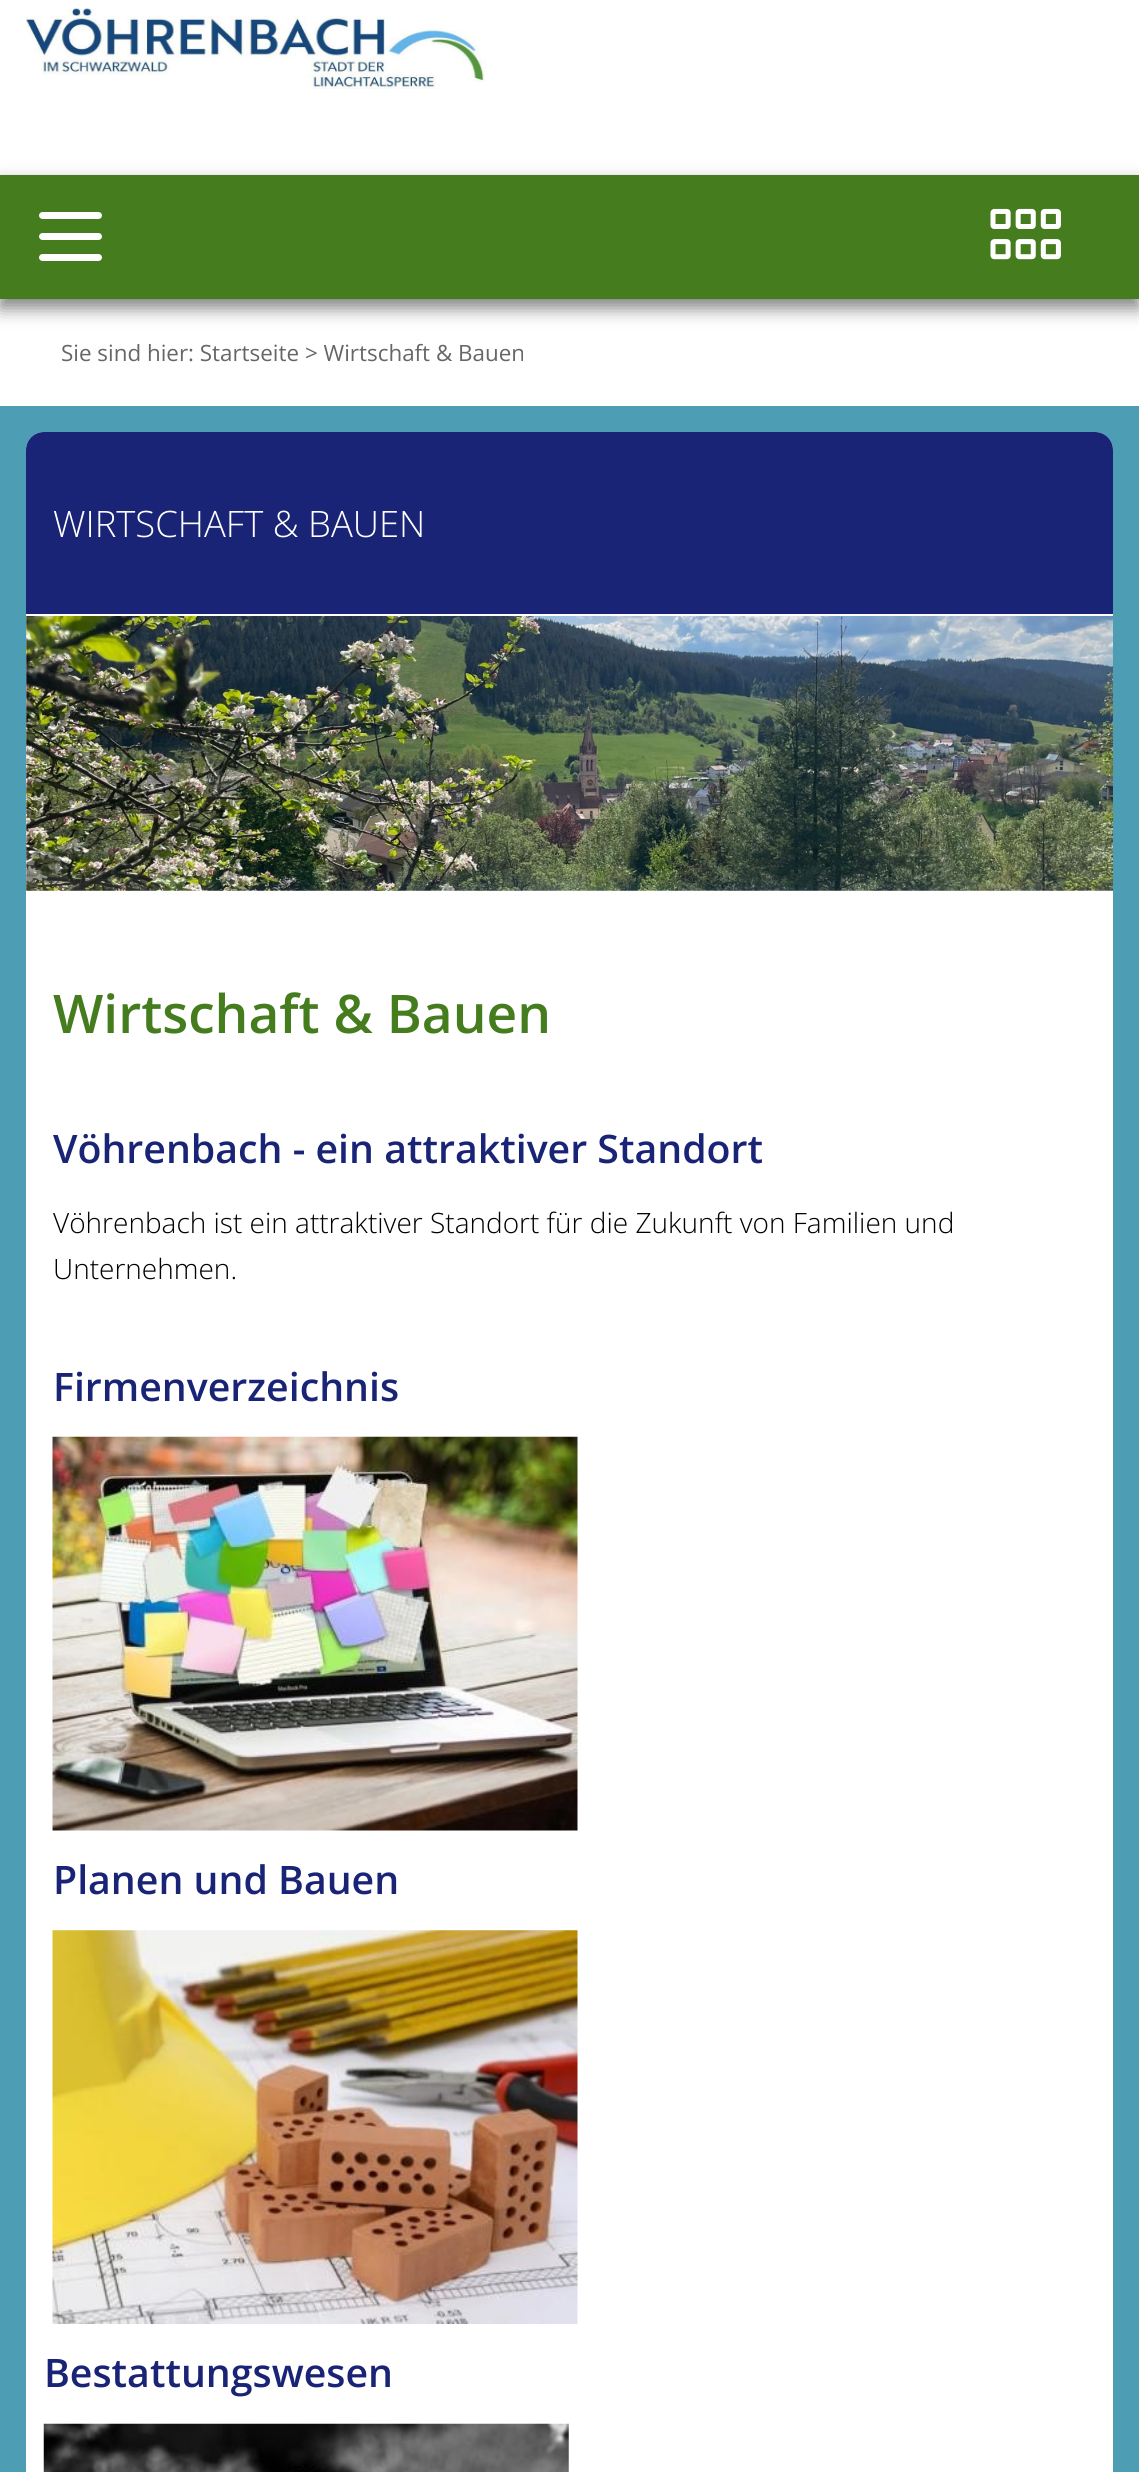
import math
import cairo



def rounded_rect(context, x, y, w, h, r):
    context.new_sub_path()
    for i, (u, v) in enumerate([(x + w - r, y + h - r), (x + r, y + h - r), (x + r, y + r), (x + w - r, y + r)]):
        context.arc(u, v, r, i * math.pi / 2, (i + 1) * math.pi / 2)
    context.close_path()


def draw_shadow(context, x, y, w, h, r, blur, alpha):
    context.push_group_with_content(cairo.Content.ALPHA)
    context.set_operator(cairo.Operator.SOURCE)
    for i in range(15, -16, -2):
        e = blur * i / 6
        if min(w, h) + 2 * e > 0:
            context.set_source_rgba(0, 0, 0, alpha * math.erfc((i - 1) / 8.5) / 2)
            rounded_rect(context, x - e, y - e, w + 2 * e, h + 2 * e, max(0, min(r + e + blur * .6, min(w, h) / 2 + e)))
            context.fill()
    context.mask(context.pop_group())


def draw_image(context, path, x, y, w, h):
    context.save()
    context.set_source_surface(cairo.ImageSurface.create_from_png(path), x, y)
    context.rectangle(x, y, w, h)
    context.fill()
    context.restore()


def draw(context):
    context.set_source_rgb(77 / 255, 157 / 255, 180 / 255)
    context.paint()
    context.set_source_rgb(1, 1, 1)
    context.rectangle(0, 0, 1139, 175)
    context.fill()
    draw_image(context, "images/1.png", 26, 8, 460, 81)
    context.rectangle(0, 299, 1139, 107)
    context.fill()
    context.set_source_rgb(0, 0, 0)
    draw_shadow(context, 0, 184, 1139, 124, 0, 9, 0.5)
    context.set_source_rgb(68 / 255, 124 / 255, 30 / 255)
    context.rectangle(0, 175, 1139, 124)
    context.fill()
    context.set_source_rgb(1, 1, 1)
    rounded_rect(context, 39, 212, 63, 7, 3.5)
    context.fill()
    rounded_rect(context, 39, 233, 63, 7, 3.5)
    context.fill()
    rounded_rect(context, 39, 254, 63, 7, 3.5)
    context.fill()
    draw_image(context, "images/2.png", 990, 208, 71, 52)
    rounded_rect(context, 26, 432, 1087, 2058, 18)
    context.fill()
    context.set_source_rgb(26 / 255, 36 / 255, 118 / 255)
    context.new_path()
    context.move_to(44, 432)
    context.line_to(1095, 432)
    context.curve_to(1105, 432, 1113, 440, 1113, 450)
    context.line_to(1113, 616)
    context.line_to(26, 616)
    context.line_to(26, 450)
    context.curve_to(26, 440, 34, 432, 44, 432)
    context.close_path()
    context.fill()
    context.set_source_rgb(1, 1, 1)
    context.rectangle(26, 614, 1087, 2)
    context.fill()
    draw_image(context, "images/3.png", 26, 616, 1087, 275)
    draw_image(context, "images/4.png", 52, 1436, 526, 395)
    draw_image(context, "images/5.png", 52, 1930, 526, 394)
    draw_image(context, "images/6.png", 43, 2423, 526, 49)
    context.select_font_face("Open Sans")
    context.set_font_size(22.4)
    context.set_source_rgb(102 / 255, 102 / 255, 102 / 255)
    context.move_to(61, 361)
    context.show_text("Sie sind hier: Startseite > Wirtschaft & Bauen")
    context.select_font_face("Open Sans Light")
    context.set_font_size(36.4)
    context.set_source_rgb(1, 1, 1)
    context.move_to(53, 537)
    context.show_text("WIRTSCHAFT & BAUEN")
    context.select_font_face("Open Sans SemiBold")
    context.set_font_size(53.25)
    context.set_source_rgb(68 / 255, 124 / 255, 30 / 255)
    context.move_to(53, 1033)
    context.show_text("Wirtschaft & Bauen")
    context.set_font_size(39.25)
    context.set_source_rgb(26 / 255, 36 / 255, 118 / 255)
    context.move_to(53, 1163)
    context.show_text("Vöhrenbach - ein attraktiver Standort")
    context.select_font_face("Open Sans Light")
    context.set_font_size(28)
    context.set_source_rgb(0, 0, 0)
    context.move_to(53, 1233)
    context.show_text("Vöhrenbach ist ein attraktiver Standort für die Zukunft von Familien und")
    context.move_to(53, 1279)
    context.show_text("Unternehmen.")
    context.select_font_face("Open Sans SemiBold")
    context.set_font_size(39.25)
    context.set_source_rgb(26 / 255, 36 / 255, 118 / 255)
    context.move_to(53, 1401)
    context.show_text("Firmenverzeichnis")
    context.move_to(53, 1894)
    context.show_text("Planen und Bauen")
    context.move_to(44, 2387)
    context.show_text("Bestattungswesen")


surface = cairo.ImageSurface(cairo.Format.RGB24, 1139, 2472)
context = cairo.Context(surface)
options = cairo.FontOptions()
options.set_hint_metrics(cairo.HintMetrics.OFF)
options.set_hint_style(cairo.HintStyle.NONE)
context.set_font_options(options)
context.set_miter_limit(4)
draw(context)
surface.write_to_png("out.png")
